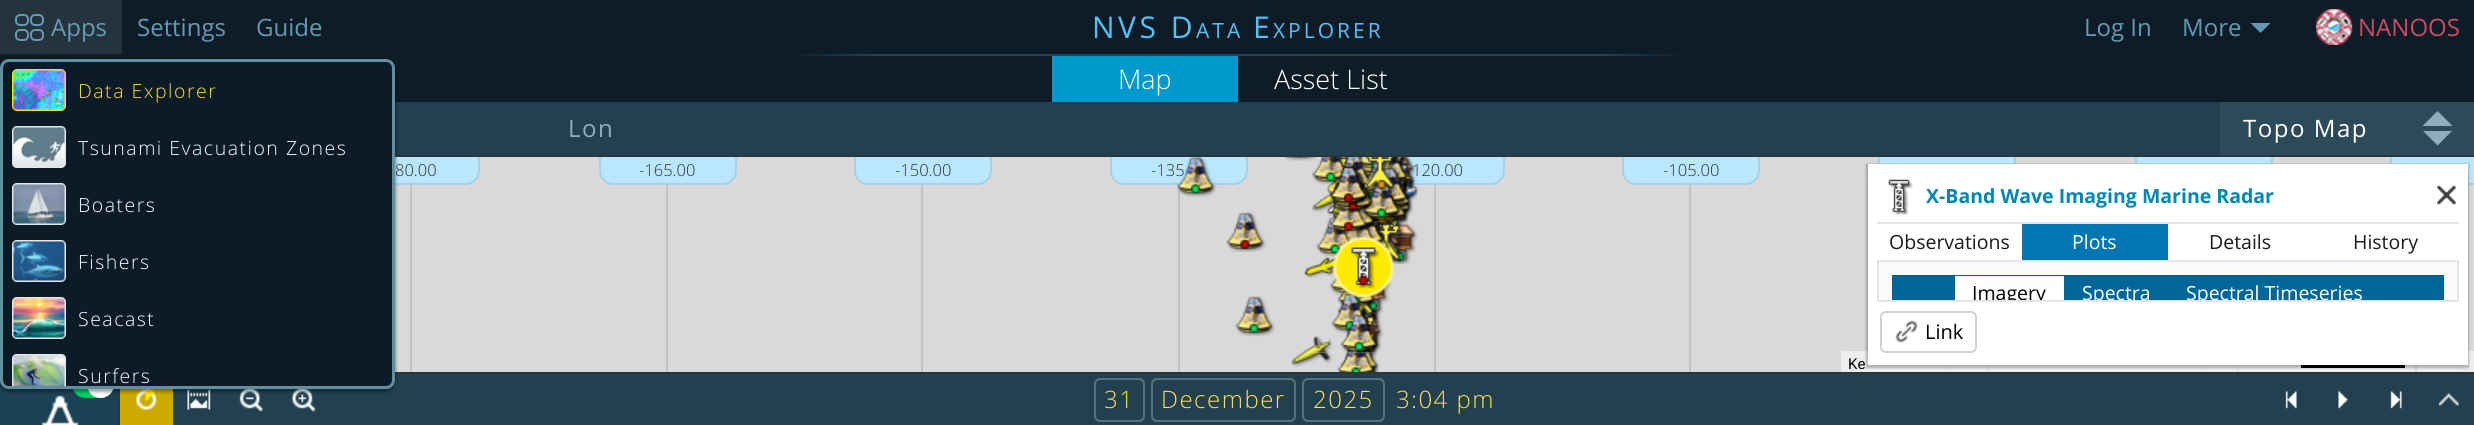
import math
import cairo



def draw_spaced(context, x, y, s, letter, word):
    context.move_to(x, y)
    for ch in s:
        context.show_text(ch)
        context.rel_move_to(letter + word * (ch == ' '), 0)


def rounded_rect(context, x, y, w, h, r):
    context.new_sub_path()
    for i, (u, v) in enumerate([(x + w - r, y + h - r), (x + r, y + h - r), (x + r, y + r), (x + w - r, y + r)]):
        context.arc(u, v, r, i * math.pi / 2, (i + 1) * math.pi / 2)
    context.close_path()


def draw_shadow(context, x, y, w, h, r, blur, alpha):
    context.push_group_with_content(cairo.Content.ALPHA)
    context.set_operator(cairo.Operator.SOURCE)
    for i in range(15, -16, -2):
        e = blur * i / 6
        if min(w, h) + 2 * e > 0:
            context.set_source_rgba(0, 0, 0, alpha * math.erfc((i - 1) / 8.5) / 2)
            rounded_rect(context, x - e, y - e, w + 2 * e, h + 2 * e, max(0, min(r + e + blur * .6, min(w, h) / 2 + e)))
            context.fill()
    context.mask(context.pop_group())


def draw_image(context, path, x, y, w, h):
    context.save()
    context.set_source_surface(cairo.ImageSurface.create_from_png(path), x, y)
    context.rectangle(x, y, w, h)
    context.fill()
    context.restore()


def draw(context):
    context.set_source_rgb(28 / 255, 65 / 255, 84 / 255)
    context.paint()
    context.set_source_rgb(13 / 255, 28 / 255, 38 / 255)
    context.rectangle(0, 0, 2474, 102)
    context.fill()
    context.set_source_rgb(37 / 255, 51 / 255, 60 / 255)
    context.rectangle(0, 0, 122, 54)
    context.fill()
    rounded_rect(context, 16, 15, 12, 10, 4)
    context.set_source_rgb(100 / 255, 154 / 255, 180 / 255)
    context.stroke()
    rounded_rect(context, 31, 15, 12, 10, 4)
    context.stroke()
    rounded_rect(context, 16, 30, 12, 10, 4)
    context.stroke()
    rounded_rect(context, 31, 30, 12, 10, 4)
    context.stroke()
    context.save()
    context.rectangle(2250, 23, 21, 10)
    context.clip()
    context.new_path()
    context.move_to(2250, 22.5)
    context.line_to(2271, 22.5)
    context.line_to(2260.5, 33)
    context.close_path()
    context.fill()
    context.restore()
    draw_image(context, "images/1.png", 2316, 9, 37, 36)
    context.set_source_rgb(34 / 255, 64 / 255, 79 / 255)
    context.rectangle(395, 102, 1825, 53)
    context.fill()
    context.set_source_rgb(217 / 255, 217 / 255, 217 / 255)
    context.rectangle(395, 157, 2079, 215)
    context.fill()
    context.set_source_rgb(184 / 255, 231 / 255, 1)
    context.new_path()
    context.move_to(342, 156)
    context.line_to(480, 156)
    context.line_to(480, 171)
    context.curve_to(480, 178.5, 473.5, 185, 466, 185)
    context.line_to(356, 185)
    context.curve_to(348.5, 185, 342, 178.5, 342, 171)
    context.close_path()
    context.fill()
    context.new_path()
    context.move_to(343, 156)
    context.line_to(479, 156)
    context.line_to(479, 171)
    context.curve_to(479, 178, 473, 184, 466, 184)
    context.line_to(356, 184)
    context.curve_to(349, 184, 343, 178, 343, 171)
    context.close_path()
    context.set_source_rgba(0, 0, 0, 0.1)
    context.stroke()
    context.set_source_rgb(184 / 255, 231 / 255, 1)
    context.new_path()
    context.move_to(599, 156)
    context.line_to(737, 156)
    context.line_to(737, 171)
    context.curve_to(737, 178.5, 730.5, 185, 723, 185)
    context.line_to(613, 185)
    context.curve_to(605.5, 185, 599, 178.5, 599, 171)
    context.close_path()
    context.fill()
    context.new_path()
    context.move_to(600, 156)
    context.line_to(736, 156)
    context.line_to(736, 171)
    context.curve_to(736, 178, 730, 184, 723, 184)
    context.line_to(613, 184)
    context.curve_to(606, 184, 600, 178, 600, 171)
    context.close_path()
    context.set_source_rgba(0, 0, 0, 0.1)
    context.stroke()
    context.set_source_rgb(184 / 255, 231 / 255, 1)
    context.new_path()
    context.move_to(854, 156)
    context.line_to(992, 156)
    context.line_to(992, 171)
    context.curve_to(992, 178.5, 985.5, 185, 978, 185)
    context.line_to(868, 185)
    context.curve_to(860.5, 185, 854, 178.5, 854, 171)
    context.close_path()
    context.fill()
    context.new_path()
    context.move_to(855, 156)
    context.line_to(991, 156)
    context.line_to(991, 171)
    context.curve_to(991, 178, 985, 184, 978, 184)
    context.line_to(868, 184)
    context.curve_to(861, 184, 855, 178, 855, 171)
    context.close_path()
    context.set_source_rgba(0, 0, 0, 0.1)
    context.stroke()
    context.set_source_rgb(184 / 255, 231 / 255, 1)
    context.new_path()
    context.move_to(1110, 156)
    context.line_to(1248, 156)
    context.line_to(1248, 171)
    context.curve_to(1248, 178.5, 1241.5, 185, 1234, 185)
    context.line_to(1124, 185)
    context.curve_to(1116.5, 185, 1110, 178.5, 1110, 171)
    context.close_path()
    context.fill()
    context.new_path()
    context.move_to(1111, 156)
    context.line_to(1247, 156)
    context.line_to(1247, 171)
    context.curve_to(1247, 178, 1241, 184, 1234, 184)
    context.line_to(1124, 184)
    context.curve_to(1117, 184, 1111, 178, 1111, 171)
    context.close_path()
    context.set_source_rgba(0, 0, 0, 0.1)
    context.stroke()
    context.set_source_rgb(184 / 255, 231 / 255, 1)
    context.new_path()
    context.move_to(1367, 156)
    context.line_to(1505, 156)
    context.line_to(1505, 171)
    context.curve_to(1505, 178.5, 1498.5, 185, 1491, 185)
    context.line_to(1381, 185)
    context.curve_to(1373.5, 185, 1367, 178.5, 1367, 171)
    context.close_path()
    context.fill()
    context.new_path()
    context.move_to(1368, 156)
    context.line_to(1504, 156)
    context.line_to(1504, 171)
    context.curve_to(1504, 178, 1498, 184, 1491, 184)
    context.line_to(1381, 184)
    context.curve_to(1374, 184, 1368, 178, 1368, 171)
    context.close_path()
    context.set_source_rgba(0, 0, 0, 0.1)
    context.stroke()
    context.set_source_rgb(184 / 255, 231 / 255, 1)
    context.new_path()
    context.move_to(1622, 156)
    context.line_to(1760, 156)
    context.line_to(1760, 171)
    context.curve_to(1760, 178.5, 1753.5, 185, 1746, 185)
    context.line_to(1636, 185)
    context.curve_to(1628.5, 185, 1622, 178.5, 1622, 171)
    context.close_path()
    context.fill()
    context.new_path()
    context.move_to(1623, 156)
    context.line_to(1759, 156)
    context.line_to(1759, 171)
    context.curve_to(1759, 178, 1753, 184, 1746, 184)
    context.line_to(1636, 184)
    context.curve_to(1629, 184, 1623, 178, 1623, 171)
    context.close_path()
    context.set_source_rgba(0, 0, 0, 0.1)
    context.stroke()
    context.set_source_rgb(184 / 255, 231 / 255, 1)
    context.rectangle(1878, 157, 138, 7)
    context.fill()
    context.rectangle(1879, 156, 136, 28)
    context.set_source_rgba(0, 0, 0, 0.1)
    context.stroke()
    context.set_source_rgb(184 / 255, 231 / 255, 1)
    context.rectangle(2135, 157, 138, 7)
    context.fill()
    context.rectangle(2136, 156, 136, 28)
    context.set_source_rgba(0, 0, 0, 0.1)
    context.stroke()
    context.set_source_rgb(184 / 255, 231 / 255, 1)
    context.rectangle(2390, 157, 84, 28)
    context.fill()
    context.rectangle(2391, 156, 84, 28)
    context.set_source_rgba(0, 0, 0, 0.1)
    context.stroke()
    context.set_source_rgb(43 / 255, 54 / 255, 59 / 255)
    context.rectangle(395, 155, 2079, 2)
    context.fill()
    context.rectangle(119, 389, 1, 36)
    context.fill()
    draw_image(context, "images/13.png", 41, 395, 38, 30)
    context.set_source_rgb(0, 204 / 255, 102 / 255)
    rounded_rect(context, 72, 371, 42, 27, 13.5)
    context.fill()
    context.set_source_rgb(1, 1, 1)
    context.arc(100.5, 384.5, 13.5, 0, 2 * math.pi)
    context.fill()
    context.set_source_rgb(34 / 255, 64 / 255, 79 / 255)
    context.rectangle(173, 374, 2301, 51)
    context.fill()
    context.set_source_rgb(43 / 255, 54 / 255, 59 / 255)
    context.rectangle(395, 372, 2079, 2)
    context.fill()
    context.set_source_rgb(204 / 255, 170 / 255, 0)
    context.rectangle(120, 389, 53, 36)
    context.fill()
    draw_image(context, "images/14.png", 136, 389, 21, 21)
    draw_image(context, "images/15.png", 187, 389, 24, 21)
    draw_image(context, "images/16.png", 239, 389, 24, 23)
    draw_image(context, "images/17.png", 292, 389, 24, 23)
    context.set_source_rgb(0, 0, 0)
    draw_shadow(context, -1, 59, 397, 333, 11, 1.5, 0.35)
    context.set_source_rgb(11 / 255, 27 / 255, 40 / 255)
    rounded_rect(context, 1.5, 60.5, 392, 327, 7.5)
    context.fill_preserve()
    context.set_source_rgb(96 / 255, 143 / 255, 159 / 255)
    context.set_line_width(3)
    context.stroke()
    rounded_rect(context, 13, 70, 52, 40, 4)
    context.set_source_rgb(1, 217 / 255, 26 / 255)
    context.set_line_width(2)
    context.stroke()
    draw_image(context, "images/2.png", 13, 70, 52, 40)
    context.set_source_rgb(121 / 255, 130 / 255, 134 / 255)
    rounded_rect(context, 12, 126, 54, 42, 5)
    context.fill()
    rounded_rect(context, 13, 127, 52, 40, 4)
    context.set_source_rgba(1, 1, 1, 0.8)
    context.stroke()
    draw_image(context, "images/3.png", 13, 127, 52, 39)
    context.set_source_rgb(121 / 255, 130 / 255, 134 / 255)
    rounded_rect(context, 12, 183, 54, 42, 5)
    context.fill()
    rounded_rect(context, 13, 184, 52, 40, 4)
    context.set_source_rgba(1, 1, 1, 0.8)
    context.stroke()
    draw_image(context, "images/4.png", 13, 184, 52, 40)
    context.set_source_rgb(121 / 255, 130 / 255, 134 / 255)
    rounded_rect(context, 12, 240, 54, 42, 5)
    context.fill()
    rounded_rect(context, 13, 241, 52, 40, 4)
    context.set_source_rgba(1, 1, 1, 0.8)
    context.stroke()
    draw_image(context, "images/5.png", 13, 241, 52, 40)
    context.set_source_rgb(121 / 255, 130 / 255, 134 / 255)
    rounded_rect(context, 12, 297, 54, 42, 5)
    context.fill()
    rounded_rect(context, 13, 298, 52, 40, 4)
    context.set_source_rgba(1, 1, 1, 0.8)
    context.stroke()
    draw_image(context, "images/6.png", 13, 298, 52, 40)
    context.set_source_rgb(121 / 255, 130 / 255, 134 / 255)
    context.new_path()
    context.move_to(17, 354)
    context.line_to(61, 354)
    context.curve_to(64, 354, 66, 356, 66, 359)
    context.line_to(66, 386)
    context.line_to(12, 386)
    context.line_to(12, 359)
    context.curve_to(12, 356, 14, 354, 17, 354)
    context.close_path()
    context.fill()
    context.set_source_rgba(1, 1, 1, 0.8)
    context.new_path()
    context.move_to(17, 354)
    context.curve_to(14, 354, 12, 356, 12, 359)
    context.line_to(12, 386)
    context.line_to(14, 386)
    context.line_to(14, 359)
    context.curve_to(14, 357, 15, 356, 17, 356)
    context.line_to(61, 356)
    context.curve_to(63, 356, 64, 357, 64, 359)
    context.line_to(64, 386)
    context.line_to(66, 386)
    context.line_to(66, 359)
    context.curve_to(66, 356, 64, 354, 61, 354)
    context.close_path()
    context.fill()
    draw_image(context, "images/7.png", 13, 355, 52, 31)
    gradient = cairo.LinearGradient(1688, 55, 788, 55)
    gradient.add_color_stop_rgba(0, 13 / 255, 28 / 255, 38 / 255, 1)
    gradient.add_color_stop_rgba(0.1, 32 / 255, 69 / 255, 96 / 255, 1)
    gradient.add_color_stop_rgba(0.9, 32 / 255, 69 / 255, 96 / 255, 1)
    gradient.add_color_stop_rgba(1, 13 / 255, 28 / 255, 38 / 255, 1)
    context.set_source(gradient)
    context.rectangle(788, 54, 900, 2)
    context.fill()
    context.set_source_rgb(0, 153 / 255, 204 / 255)
    context.rectangle(1052, 56, 186, 46)
    context.fill()
    context.set_source_rgb(45 / 255, 74 / 255, 88 / 255)
    context.rectangle(2220, 102, 254, 53)
    context.fill()
    context.set_source_rgb(143 / 255, 173 / 255, 188 / 255)
    context.new_path()
    context.move_to(2422.5, 126)
    context.line_to(2437.5, 111)
    context.line_to(2452.5, 126)
    context.close_path()
    context.fill()
    context.save()
    context.rectangle(2423, 131, 30, 15)
    context.clip()
    context.new_path()
    context.move_to(2422.5, 130.5)
    context.line_to(2452.5, 130.5)
    context.line_to(2437.5, 145.5)
    context.close_path()
    context.fill()
    context.restore()
    draw_image(context, "images/9.png", 1291, 352, 89, 20)
    context.set_source_rgb(195 / 255, 195 / 255, 195 / 255)
    context.rectangle(410, 185, 2, 187)
    context.fill()
    context.rectangle(666, 185, 2, 187)
    context.fill()
    context.rectangle(921, 185, 2, 187)
    context.fill()
    context.rectangle(1178, 185, 2, 187)
    context.fill()
    context.rectangle(1434, 185, 2, 187)
    context.fill()
    context.rectangle(1689, 185, 2, 187)
    context.fill()
    context.rectangle(1946, 365, 2, 7)
    context.fill()
    context.rectangle(2202, 365, 2, 7)
    context.fill()
    context.rectangle(2457, 365, 2, 7)
    context.fill()
    context.set_source_rgba(245 / 255, 245 / 255, 245 / 255, 0.7)
    context.rectangle(1841, 351, 147, 21)
    context.fill()
    context.rectangle(1989, 365, 248, 7)
    context.fill()
    context.set_source_rgb(237 / 255, 237 / 255, 237 / 255)
    context.rectangle(2238, 365, 177, 7)
    context.fill()
    context.set_source_rgb(0, 0, 0)
    context.rectangle(2301, 365, 104, 3)
    context.fill()
    context.rectangle(2301, 359, 3, 9)
    context.fill()
    context.rectangle(2402, 359, 3, 9)
    context.fill()
    context.set_source_rgba(245 / 255, 245 / 255, 245 / 255, 0.7)
    context.rectangle(2417, 351, 57, 21)
    context.fill()
    context.set_source_rgb(0, 0, 0)
    draw_shadow(context, 1866, 164, 603, 204, 0, 1, 0.25)
    context.set_source_rgb(1, 1, 1)
    context.rectangle(1868, 164, 600, 201)
    context.fill()
    draw_image(context, "images/10.png", 1888, 179, 25, 36)
    draw_image(context, "images/11.png", 2437, 185, 19, 20)
    context.set_source_rgb(230 / 255, 230 / 255, 230 / 255)
    context.rectangle(1877, 222, 582, 2)
    context.fill()
    context.set_source_rgb(0, 119 / 255, 179 / 255)
    context.rectangle(2022, 224, 146, 36)
    context.fill()
    context.set_source_rgb(250 / 255, 250 / 255, 250 / 255)
    context.rectangle(1879, 262, 578, 38)
    context.fill()
    context.set_source_rgb(0, 102 / 255, 153 / 255)
    context.rectangle(1892, 275, 552, 25)
    context.fill()
    context.set_source_rgb(1, 1, 1)
    context.rectangle(1955, 276, 109, 24)
    context.fill()
    rounded_rect(context, 1881, 312, 95, 40, 5)
    context.set_source_rgb(209 / 255, 209 / 255, 209 / 255)
    context.stroke()
    draw_image(context, "images/12.png", 1895, 320, 23, 23)
    rounded_rect(context, 1095, 379, 49, 42, 5)
    context.set_source_rgb(89 / 255, 112 / 255, 123 / 255)
    context.stroke()
    rounded_rect(context, 1152, 379, 143, 42, 5)
    context.stroke()
    rounded_rect(context, 1303, 379, 81, 42, 5)
    context.stroke()
    draw_image(context, "images/18.png", 2285, 391, 12, 18)
    draw_image(context, "images/19.png", 2338, 391, 10, 18)
    draw_image(context, "images/20.png", 2390, 391, 12, 18)
    draw_image(context, "images/21.png", 2438, 392, 21, 14)
    context.select_font_face("Open Sans")
    context.set_font_size(30)
    context.set_source_rgb(85 / 255, 193 / 255, 246 / 255)
    draw_spaced(context, 1092, 38, "NVS D", 3.5, 0)
    context.set_font_size(21)
    draw_spaced(context, 1196, 38, "ATA", 3, 0)
    context.set_font_size(30)
    draw_spaced(context, 1253, 38, "E", 3, 0)
    context.set_font_size(21)
    draw_spaced(context, 1273, 38, "XPLORER", 3, 0)
    context.set_font_size(24)
    context.set_source_rgb(100 / 255, 154 / 255, 180 / 255)
    context.move_to(51, 36)
    context.show_text("Apps")
    context.move_to(137, 36)
    context.show_text("Settings")
    context.move_to(256, 36)
    context.show_text("Guide")
    context.move_to(2084, 36)
    context.show_text("Log In")
    context.move_to(2182, 36)
    context.show_text("More")
    context.set_source_rgb(203 / 255, 77 / 255, 98 / 255)
    context.move_to(2358, 36)
    context.show_text("NANOOS")
    context.select_font_face("Open Sans Light")
    context.set_font_size(19.5)
    context.set_source_rgb(1, 221 / 255, 51 / 255)
    draw_spaced(context, 78, 98, "Data Explorer", 1.5, 0)
    context.set_source_rgb(249 / 255, 250 / 255, 251 / 255)
    draw_spaced(context, 78, 155, "Tsunami Evacuation Zones", 1.5, 0)
    draw_spaced(context, 78, 212, "Boaters", 1.5, 0)
    draw_spaced(context, 78, 269, "Fishers", 1.5, 0)
    draw_spaced(context, 78, 326, "Seacast", 1.5, 0)
    draw_spaced(context, 78, 383, "Surfers", 1.5, 0)
    context.set_font_size(27)
    context.set_source_rgb(1, 1, 1)
    context.move_to(1118, 89)
    context.show_text("Map")
    context.move_to(1274, 89)
    context.show_text("Asset List")
    context.select_font_face("Open Sans")
    context.set_font_size(24)
    context.set_source_rgb(143 / 255, 173 / 255, 188 / 255)
    draw_spaced(context, 568, 137, "Lon", 1.5, 0)
    context.set_source_rgb(1, 1, 1)
    draw_spaced(context, 2243, 137, "Topo Map", 1.5, 0)
    context.select_font_face("Open Sans Light")
    context.set_font_size(16.5)
    context.set_source_rgb(51 / 255, 51 / 255, 51 / 255)
    context.move_to(395, 176)
    context.show_text("80.00")
    context.move_to(639, 176)
    context.show_text("-165.00")
    context.move_to(895, 176)
    context.show_text("-150.00")
    context.move_to(1151, 176)
    context.show_text("-135")
    context.move_to(1412, 176)
    context.show_text("120.00")
    draw_image(context, "images/8.png", 1177, 157, 241, 196)
    context.move_to(1663, 176)
    context.show_text("-105.00")
    context.select_font_face("Roboto")
    context.set_font_size(15)
    context.set_source_rgb(0, 0, 0)
    context.move_to(1848, 369)
    context.show_text("Ke")
    context.select_font_face("Open Sans", cairo.FontSlant.NORMAL, cairo.FontWeight.BOLD)
    context.set_font_size(19.5)
    context.set_source_rgb(0, 134 / 255, 179 / 255)
    context.move_to(1926, 203)
    context.show_text("X-Band Wave Imaging Marine Radar")
    context.select_font_face("Open Sans")
    context.set_source_rgb(26 / 255, 26 / 255, 26 / 255)
    context.move_to(1889, 249)
    context.show_text("Observations")
    context.set_source_rgb(1, 1, 1)
    context.move_to(2072, 249)
    context.show_text("Plots")
    context.set_source_rgb(26 / 255, 26 / 255, 26 / 255)
    context.move_to(2209, 249)
    context.show_text("Details")
    context.move_to(2353, 249)
    context.show_text("History")
    context.save()
    context.rectangle(1893, 276, 549, 26)
    context.clip()
    context.set_source_rgb(0, 0, 0)
    context.move_to(1972, 300)
    context.show_text("Imagery")
    context.set_source_rgb(1, 1, 1)
    context.move_to(2082, 300)
    context.show_text("Spectra")
    context.move_to(2186, 300)
    context.show_text("Spectral Timeseries")
    context.restore()
    context.rectangle(1878, 261, 580, 40)
    context.set_source_rgb(230 / 255, 230 / 255, 230 / 255)
    context.stroke()
    context.set_font_size(20)
    context.set_source_rgb(0, 0, 0)
    context.move_to(1925, 339)
    context.show_text("Link")
    context.select_font_face("Open Sans Light")
    context.set_font_size(24)
    context.set_source_rgb(1, 225 / 255, 77 / 255)
    draw_spaced(context, 1104, 408, "31", 1.5, 0)
    draw_spaced(context, 1161, 408, "December", 1.5, 0)
    draw_spaced(context, 1313, 408, "2025", 1.5, 0)
    draw_spaced(context, 1396, 408, "3:04 pm", 1.5, 0)


surface = cairo.ImageSurface(cairo.Format.RGB24, 2474, 425)
context = cairo.Context(surface)
options = cairo.FontOptions()
options.set_hint_metrics(cairo.HintMetrics.OFF)
options.set_hint_style(cairo.HintStyle.NONE)
context.set_font_options(options)
context.set_miter_limit(4)
draw(context)
surface.write_to_png("out.png")
